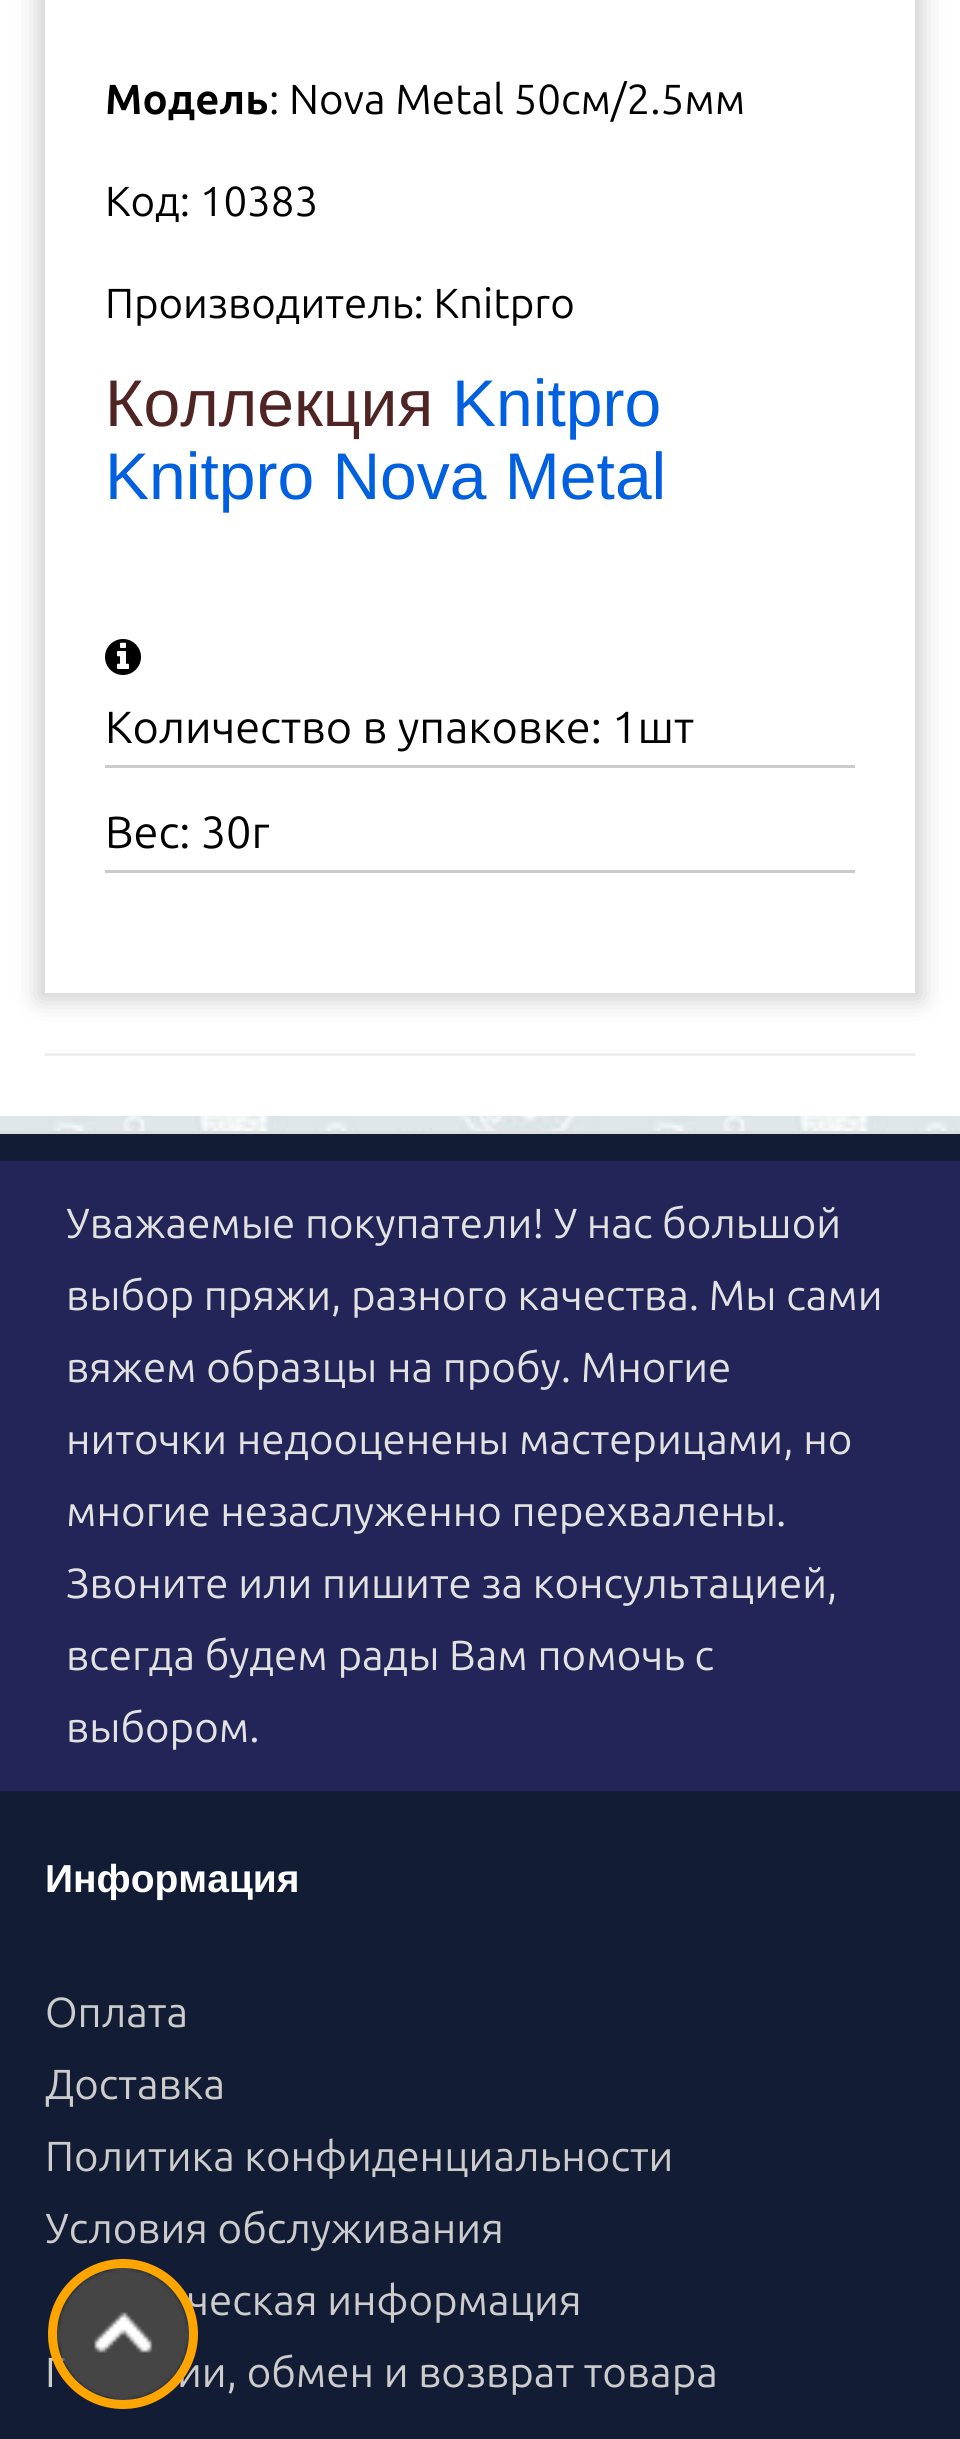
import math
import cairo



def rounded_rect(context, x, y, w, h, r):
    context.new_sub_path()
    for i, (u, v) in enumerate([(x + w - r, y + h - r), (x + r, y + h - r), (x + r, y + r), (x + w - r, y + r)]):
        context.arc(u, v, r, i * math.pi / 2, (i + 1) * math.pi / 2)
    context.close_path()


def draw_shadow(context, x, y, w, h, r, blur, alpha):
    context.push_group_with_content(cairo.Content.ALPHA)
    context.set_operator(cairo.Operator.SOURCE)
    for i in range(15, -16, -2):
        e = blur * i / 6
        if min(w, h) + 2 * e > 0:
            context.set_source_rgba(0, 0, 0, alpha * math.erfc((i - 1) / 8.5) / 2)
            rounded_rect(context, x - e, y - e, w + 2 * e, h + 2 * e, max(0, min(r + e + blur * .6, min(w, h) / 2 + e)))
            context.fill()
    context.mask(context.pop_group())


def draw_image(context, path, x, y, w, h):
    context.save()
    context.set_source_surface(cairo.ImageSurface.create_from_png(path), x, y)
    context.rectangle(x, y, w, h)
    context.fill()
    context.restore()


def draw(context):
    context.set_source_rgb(1, 1, 1)
    context.paint()
    draw_image(context, "images/1.png", 0, 1116, 960, 15)
    context.save()
    context.set_fill_rule(cairo.FillRule.EVEN_ODD)
    context.new_path()
    context.move_to(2, 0)
    context.line_to(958, 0)
    context.line_to(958, 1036)
    context.line_to(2, 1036)
    context.close_path()
    context.move_to(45, -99)
    context.line_to(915, -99)
    context.line_to(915, 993)
    context.line_to(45, 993)
    context.close_path()
    context.clip()
    context.set_source_rgb(204 / 255, 204 / 255, 204 / 255)
    draw_shadow(context, 39, -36, 882, 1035, 0, 12, 1)
    context.restore()
    draw_image(context, "images/2.png", 105, 639, 36, 36)
    context.set_source_rgb(204 / 255, 204 / 255, 204 / 255)
    context.rectangle(105, 765, 750, 3)
    context.fill()
    context.rectangle(105, 870, 750, 3)
    context.fill()
    context.set_source_rgb(238 / 255, 238 / 255, 238 / 255)
    context.rectangle(45, 1053, 870, 3)
    context.fill()
    context.set_source_rgb(19 / 255, 28 / 255, 53 / 255)
    context.rectangle(0, 1134, 960, 1305)
    context.fill()
    context.set_source_rgb(221 / 255, 221 / 255, 221 / 255)
    context.rectangle(0, 1131, 960, 3)
    context.fill()
    context.set_source_rgb(35 / 255, 36 / 255, 87 / 255)
    context.rectangle(0, 1161, 960, 630)
    context.fill()
    context.select_font_face("Ubuntu", cairo.FontSlant.NORMAL, cairo.FontWeight.BOLD)
    context.set_font_size(42)
    context.set_source_rgb(0, 0, 0)
    context.move_to(105, 114)
    context.show_text("Модель")
    context.select_font_face("Ubuntu")
    context.move_to(269, 114)
    context.show_text(": Nova Metal 50см/2.5мм")
    context.move_to(105, 216)
    context.show_text("Код: 10383")
    context.move_to(105, 318)
    context.show_text("Производитель: Knitpro")
    context.select_font_face("Liberation Sans")
    context.set_font_size(66)
    context.set_source_rgb(81 / 255, 36 / 255, 36 / 255)
    context.move_to(105, 426)
    context.show_text("Коллекция")
    context.set_source_rgb(0, 96 / 255, 223 / 255)
    context.move_to(452, 426)
    context.show_text("Knitpro")
    context.move_to(105, 499)
    context.show_text("Knitpro Nova Metal")
    context.select_font_face("Ubuntu")
    context.set_font_size(45)
    context.set_source_rgb(0, 0, 0)
    context.move_to(105, 743)
    context.show_text("Количество в упаковке: 1шт")
    context.move_to(105, 848)
    context.show_text("Вес: 30г")
    context.set_font_size(42)
    context.set_source_rgb(226 / 255, 226 / 255, 226 / 255)
    context.move_to(66, 1238)
    context.show_text("Уважаемые покупатели! У нас большой")
    context.move_to(66, 1310)
    context.show_text("выбор пряжи, разного качества. Мы сами")
    context.move_to(66, 1382)
    context.show_text("вяжем образцы на пробу. Многие")
    context.move_to(66, 1454)
    context.show_text("ниточки недооценены мастерицами, но")
    context.move_to(66, 1526)
    context.show_text("многие незаслуженно перехвалены.")
    context.move_to(66, 1598)
    context.show_text("Звоните или пишите за консультацией,")
    context.move_to(66, 1670)
    context.show_text("всегда будем рады Вам помочь с")
    context.move_to(66, 1742)
    context.show_text("выбором.")
    context.select_font_face("Liberation Sans", cairo.FontSlant.NORMAL, cairo.FontWeight.BOLD)
    context.set_font_size(39)
    context.set_source_rgb(1, 1, 1)
    context.move_to(45, 1892)
    context.show_text("Информация")
    context.select_font_face("Ubuntu")
    context.set_font_size(42)
    context.set_source_rgb(204 / 255, 204 / 255, 204 / 255)
    context.move_to(45, 2027)
    context.show_text("Оплата")
    context.move_to(45, 2099)
    context.show_text("Доставка")
    context.move_to(45, 2171)
    context.show_text("Политика конфиденциальности")
    context.move_to(45, 2243)
    context.show_text("Условия обслуживания")
    context.move_to(187, 2315)
    context.show_text("ческая информация")
    context.move_to(45, 2387)
    context.show_text("Г")
    context.move_to(177, 2387)
    context.show_text("ии, обмен и возврат товара")
    draw_image(context, "images/3.png", 57, 2268, 132, 132)
    context.arc(123, 2334, 70.5, 0, 2 * math.pi)
    context.set_source_rgb(1, 165 / 255, 0)
    context.set_line_width(9)
    context.stroke()


surface = cairo.ImageSurface(cairo.Format.RGB24, 960, 2439)
context = cairo.Context(surface)
options = cairo.FontOptions()
options.set_hint_metrics(cairo.HintMetrics.OFF)
options.set_hint_style(cairo.HintStyle.NONE)
context.set_font_options(options)
context.set_miter_limit(4)
draw(context)
surface.write_to_png("out.png")
